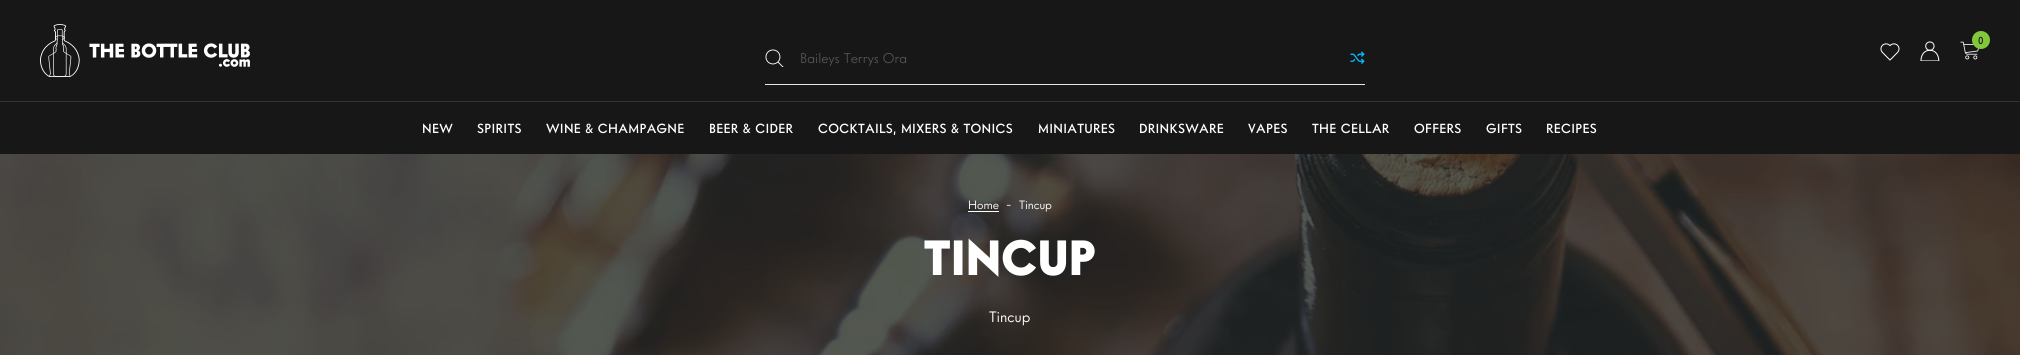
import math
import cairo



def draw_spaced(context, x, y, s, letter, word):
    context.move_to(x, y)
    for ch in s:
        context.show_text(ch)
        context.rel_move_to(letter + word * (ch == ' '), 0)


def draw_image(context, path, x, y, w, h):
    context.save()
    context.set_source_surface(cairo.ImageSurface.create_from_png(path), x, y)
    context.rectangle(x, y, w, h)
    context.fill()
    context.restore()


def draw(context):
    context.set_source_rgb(1, 1, 1)
    context.paint()
    context.set_source_rgb(23 / 255, 23 / 255, 23 / 255)
    context.rectangle(0, 0, 2020, 154)
    context.fill()
    draw_image(context, "images/1.png", 40, 24, 210, 53)
    draw_image(context, "images/2.png", 1880, 43, 20, 18)
    draw_image(context, "images/3.png", 1920, 41, 20, 20)
    draw_image(context, "images/4.png", 1960, 41, 19, 19)
    context.set_source_rgb(131 / 255, 200 / 255, 58 / 255)
    context.arc(1981, 40, 9, 0, 2 * math.pi)
    context.fill()
    context.set_source_rgb(229 / 255, 231 / 255, 235 / 255)
    context.rectangle(765, 84, 600, 1)
    context.fill()
    draw_image(context, "images/5.png", 765, 49, 19, 18)
    draw_image(context, "images/6.png", 1350, 51, 15, 13)
    context.set_source_rgb(51 / 255, 51 / 255, 51 / 255)
    context.rectangle(0, 101, 2020, 1)
    context.fill()
    draw_image(context, "images/7.png", 0, 154, 2020, 201)
    context.set_source_rgb(1, 1, 1)
    context.rectangle(968, 211, 31, 1)
    context.fill()
    context.select_font_face("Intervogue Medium")
    context.set_font_size(10)
    context.set_source_rgb(23 / 255, 23 / 255, 23 / 255)
    context.move_to(1978, 44)
    context.show_text("0")
    context.select_font_face("Intervogue Light")
    context.set_font_size(14)
    context.set_source_rgb(93 / 255, 93 / 255, 93 / 255)
    context.move_to(800, 63)
    context.show_text("Baileys Terrys Ora")
    context.select_font_face("Intervogue Medium")
    context.set_font_size(13)
    context.set_source_rgb(1, 1, 1)
    draw_spaced(context, 422, 133, "NEW", 0.3, 0)
    draw_spaced(context, 477, 133, "SPIRITS", 0.3, 0)
    draw_spaced(context, 546, 133, "WINE & CHAMPAGNE", 0.3, 0)
    draw_spaced(context, 709, 133, "BEER & CIDER", 0.3, 0)
    draw_spaced(context, 818, 133, "COCKTAILS, MIXERS & TONICS", 0.3, 0)
    draw_spaced(context, 1038, 133, "MINIATURES", 0.3, 0)
    draw_spaced(context, 1139, 133, "DRINKSWARE", 0.3, 0)
    draw_spaced(context, 1248, 133, "VAPES", 0.3, 0)
    draw_spaced(context, 1312, 133, "THE CELLAR", 0.3, 0)
    draw_spaced(context, 1414, 133, "OFFERS", 0.3, 0)
    draw_spaced(context, 1486, 133, "GIFTS", 0.3, 0)
    draw_spaced(context, 1546, 133, "RECIPES", 0.3, 0)
    context.select_font_face("Intervogue")
    context.set_font_size(12)
    context.move_to(968, 209)
    context.show_text("Home")
    context.move_to(1006, 209)
    context.show_text("-")
    context.move_to(1019, 209)
    context.show_text("Tincup")
    context.select_font_face("Intervogue Black")
    context.set_font_size(48)
    context.move_to(924, 275)
    context.show_text("TINCUP")
    context.select_font_face("Intervogue")
    context.set_font_size(15)
    context.move_to(989, 322)
    context.show_text("Tincup")


surface = cairo.ImageSurface(cairo.Format.RGB24, 2020, 355)
context = cairo.Context(surface)
options = cairo.FontOptions()
options.set_hint_metrics(cairo.HintMetrics.OFF)
options.set_hint_style(cairo.HintStyle.NONE)
context.set_font_options(options)
context.set_miter_limit(4)
draw(context)
surface.write_to_png("out.png")
